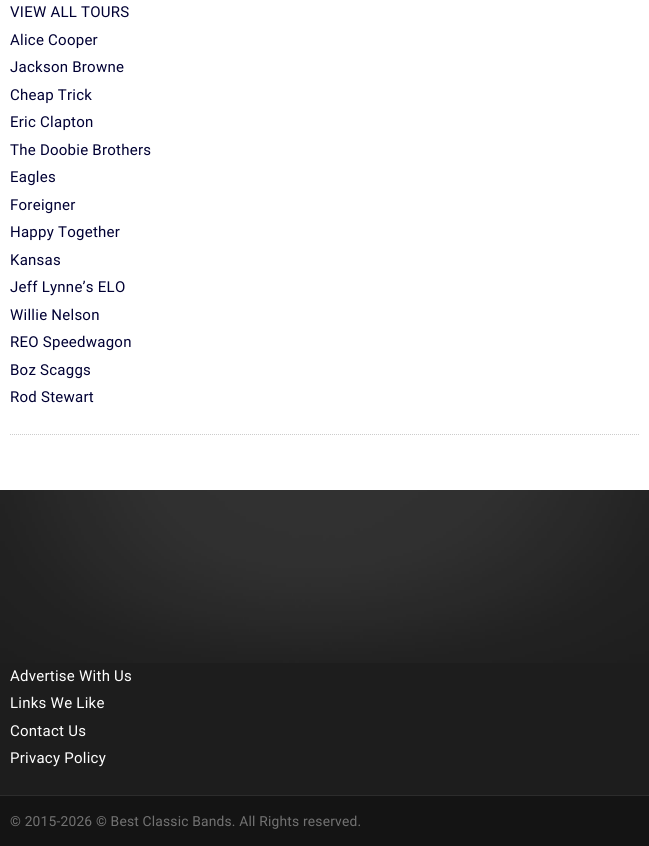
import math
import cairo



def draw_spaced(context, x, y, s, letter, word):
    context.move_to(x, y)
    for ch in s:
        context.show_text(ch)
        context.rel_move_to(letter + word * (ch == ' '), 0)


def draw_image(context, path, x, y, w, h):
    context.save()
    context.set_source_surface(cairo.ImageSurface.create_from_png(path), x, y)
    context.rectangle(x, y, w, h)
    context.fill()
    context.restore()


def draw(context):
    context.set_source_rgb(1, 1, 1)
    context.paint()
    context.new_path()
    context.move_to(10, 434.5)
    context.line_to(639, 434.5)
    context.set_source_rgb(204 / 255, 204 / 255, 204 / 255)
    context.set_line_width(1)
    context.set_dash([1, 1])
    context.stroke()
    context.set_source_rgb(29 / 255, 29 / 255, 29 / 255)
    context.rectangle(0, 490, 649, 305)
    context.fill()
    draw_image(context, "images/1.png", 0, 490, 649, 173)
    context.set_source_rgb(20 / 255, 20 / 255, 20 / 255)
    context.rectangle(0, 796, 649, 50)
    context.fill()
    context.set_source_rgb(44 / 255, 44 / 255, 44 / 255)
    context.rectangle(0, 795, 649, 1)
    context.fill()
    context.select_font_face("Roboto")
    context.set_font_size(15)
    context.set_source_rgb(0, 0, 51 / 255)
    draw_spaced(context, 10, 17, "VIEW ALL TOURS", 0.25, 0)
    draw_spaced(context, 10, 45, "Alice Cooper", 0.25, 0)
    draw_spaced(context, 10, 72, "Jackson Browne", 0.25, 0)
    draw_spaced(context, 10, 100, "Cheap Trick", 0.25, 0)
    draw_spaced(context, 10, 127, "Eric Clapton", 0.25, 0)
    draw_spaced(context, 10, 155, "The Doobie Brothers", 0.25, 0)
    draw_spaced(context, 10, 182, "Eagles", 0.25, 0)
    draw_spaced(context, 10, 210, "Foreigner", 0.25, 0)
    draw_spaced(context, 10, 237, "Happy Together", 0.25, 0)
    draw_spaced(context, 10, 265, "Kansas", 0.25, 0)
    draw_spaced(context, 10, 292, "Jeff Lynne’s ELO", 0.25, 0)
    draw_spaced(context, 10, 320, "Willie Nelson", 0.25, 0)
    draw_spaced(context, 10, 347, "REO Speedwagon", 0.25, 0)
    draw_spaced(context, 10, 375, "Boz Scaggs", 0.25, 0)
    draw_spaced(context, 10, 402, "Rod Stewart", 0.25, 0)
    context.set_source_rgb(1, 1, 1)
    draw_spaced(context, 10, 681, "Advertise With Us", 0.25, 0)
    draw_spaced(context, 10, 708, "Links We Like", 0.25, 0)
    draw_spaced(context, 10, 736, "Contact Us", 0.25, 0)
    draw_spaced(context, 10, 763, "Privacy Policy", 0.25, 0)
    context.set_font_size(13.8)
    context.set_source_rgb(114 / 255, 114 / 255, 114 / 255)
    draw_spaced(context, 10, 826, "© 2015-2026 © Best Classic Bands. All Rights reserved.", 0.2, 0)


surface = cairo.ImageSurface(cairo.Format.RGB24, 649, 846)
context = cairo.Context(surface)
options = cairo.FontOptions()
options.set_hint_metrics(cairo.HintMetrics.OFF)
options.set_hint_style(cairo.HintStyle.NONE)
context.set_font_options(options)
context.set_miter_limit(4)
draw(context)
surface.write_to_png("out.png")
